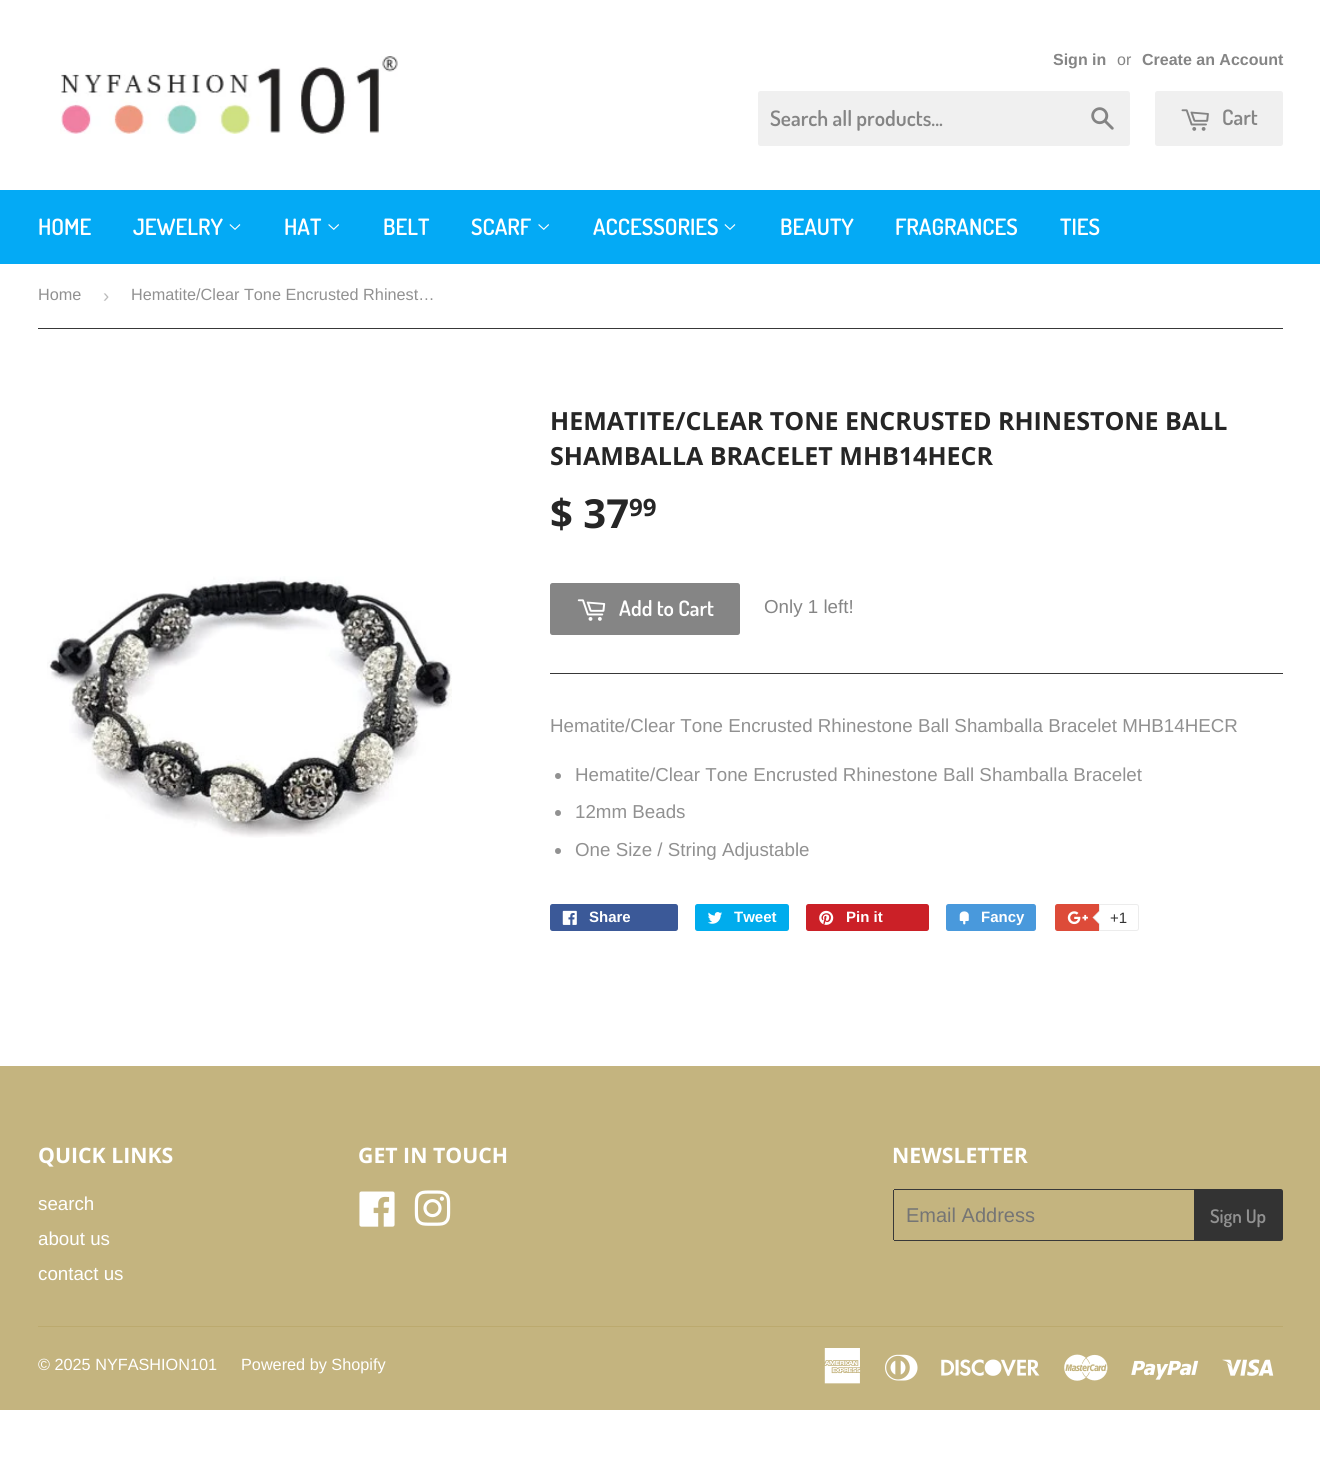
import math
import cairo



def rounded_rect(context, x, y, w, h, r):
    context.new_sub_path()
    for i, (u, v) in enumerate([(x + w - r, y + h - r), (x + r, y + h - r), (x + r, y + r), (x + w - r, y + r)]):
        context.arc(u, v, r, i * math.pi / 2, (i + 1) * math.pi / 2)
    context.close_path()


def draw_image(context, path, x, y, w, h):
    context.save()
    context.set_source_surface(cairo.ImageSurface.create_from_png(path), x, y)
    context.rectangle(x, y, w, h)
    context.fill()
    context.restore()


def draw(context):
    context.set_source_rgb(1, 1, 1)
    context.paint()
    draw_image(context, "images/1.png", 60, 56, 338, 78)
    context.set_source_rgb(240 / 255, 240 / 255, 240 / 255)
    rounded_rect(context, 758, 91, 372, 55, 2.5)
    context.fill()
    draw_image(context, "images/2.png", 1091, 107, 23, 23)
    rounded_rect(context, 1155, 91, 128, 55, 2.5)
    context.fill()
    draw_image(context, "images/3.png", 1181, 109, 28, 22)
    context.set_source_rgb(4 / 255, 170 / 255, 245 / 255)
    context.rectangle(0, 190, 1320, 74)
    context.fill()
    draw_image(context, "images/4.png", 229, 224, 12, 6)
    draw_image(context, "images/5.png", 328, 224, 11, 6)
    draw_image(context, "images/5.png", 538, 224, 11, 6)
    draw_image(context, "images/4.png", 724, 224, 12, 6)
    context.set_source_rgb(56 / 255, 56 / 255, 56 / 255)
    context.rectangle(38, 328, 1245, 1)
    context.fill()
    draw_image(context, "images/6.png", 47, 576, 405, 262)
    context.set_source_rgb(133 / 255, 133 / 255, 133 / 255)
    rounded_rect(context, 550, 583, 190, 52, 2.5)
    context.fill()
    draw_image(context, "images/7.png", 577, 599, 29, 22)
    context.set_source_rgb(56 / 255, 56 / 255, 56 / 255)
    context.rectangle(550, 673, 733, 1)
    context.fill()
    context.set_source_rgb(145 / 255, 145 / 255, 145 / 255)
    context.arc(558, 776, 3, 0, 2 * math.pi)
    context.fill()
    context.arc(558, 813, 3, 0, 2 * math.pi)
    context.fill()
    context.arc(558, 851, 3, 0, 2 * math.pi)
    context.fill()
    context.set_source_rgb(59 / 255, 89 / 255, 152 / 255)
    rounded_rect(context, 550, 904, 128, 27, 2.5)
    context.fill()
    draw_image(context, "images/8.png", 562, 910, 15, 15)
    context.set_source_rgb(0, 172 / 255, 237 / 255)
    rounded_rect(context, 695, 904, 94, 27, 2.5)
    context.fill()
    draw_image(context, "images/9.png", 707, 912, 15, 12)
    context.set_source_rgb(203 / 255, 32 / 255, 39 / 255)
    rounded_rect(context, 806, 904, 123, 27, 2.5)
    context.fill()
    draw_image(context, "images/10.png", 819, 910, 15, 15)
    context.set_source_rgb(73 / 255, 153 / 255, 220 / 255)
    rounded_rect(context, 946, 904, 90, 27, 2.5)
    context.fill()
    draw_image(context, "images/11.png", 959, 911, 10, 14)
    context.set_source_rgb(221 / 255, 75 / 255, 57 / 255)
    rounded_rect(context, 1055, 904, 81, 27, 2.5)
    context.fill()
    draw_image(context, "images/12.png", 1067, 911, 21, 14)
    context.set_source_rgb(1, 1, 1)
    context.new_path()
    context.move_to(1099.5, 904.5)
    context.line_to(1136.5, 904.5)
    context.curve_to(1137.5, 904.5, 1138.5, 905.5, 1138.5, 906.5)
    context.line_to(1138.5, 928.5)
    context.curve_to(1138.5, 929.5, 1137.5, 930.5, 1136.5, 930.5)
    context.line_to(1099.5, 930.5)
    context.close_path()
    context.fill_preserve()
    context.set_source_rgb(236 / 255, 236 / 255, 236 / 255)
    context.set_line_width(1)
    context.stroke()
    context.new_path()
    context.move_to(1100, 910)
    context.line_to(1100, 925)
    context.line_to(1092.5, 917.5)
    context.close_path()
    context.fill()
    context.set_source_rgb(1, 1, 1)
    context.new_path()
    context.move_to(1101, 910)
    context.line_to(1101, 925)
    context.line_to(1094, 917.5)
    context.close_path()
    context.fill()
    context.set_source_rgb(196 / 255, 180 / 255, 127 / 255)
    context.rectangle(0, 1066, 1320, 344)
    context.fill()
    draw_image(context, "images/13.png", 359, 1191, 36, 36)
    draw_image(context, "images/14.png", 414, 1190, 37, 36)
    context.set_source_rgb(56 / 255, 56 / 255, 56 / 255)
    context.rectangle(894, 1189, 300, 1)
    context.fill()
    context.rectangle(894, 1240, 300, 1)
    context.fill()
    context.rectangle(893, 1190, 1, 50)
    context.fill()
    context.set_source_rgb(51 / 255, 51 / 255, 51 / 255)
    context.new_path()
    context.move_to(1194, 1189)
    context.line_to(1280.5, 1189)
    context.curve_to(1282, 1189, 1283, 1190, 1283, 1191.5)
    context.line_to(1283, 1238.5)
    context.curve_to(1283, 1240, 1282, 1241, 1280.5, 1241)
    context.line_to(1194, 1241)
    context.close_path()
    context.fill()
    context.set_source_rgb(188 / 255, 170 / 255, 110 / 255)
    context.rectangle(38, 1326, 1245, 1)
    context.fill()
    draw_image(context, "images/15.png", 824, 1348, 37, 36)
    draw_image(context, "images/16.png", 885, 1354, 33, 27)
    draw_image(context, "images/17.png", 941, 1359, 99, 17)
    draw_image(context, "images/18.png", 1064, 1354, 44, 27)
    draw_image(context, "images/19.png", 1131, 1360, 68, 20)
    draw_image(context, "images/20.png", 1222, 1359, 52, 17)
    context.select_font_face("Liberation Sans", cairo.FontSlant.NORMAL, cairo.FontWeight.BOLD)
    context.set_font_size(16)
    context.set_source_rgb(133 / 255, 133 / 255, 133 / 255)
    context.move_to(1053, 65)
    context.show_text("Sign in")
    context.select_font_face("Liberation Sans")
    context.move_to(1117, 65)
    context.show_text("or")
    context.select_font_face("Liberation Sans", cairo.FontSlant.NORMAL, cairo.FontWeight.BOLD)
    context.move_to(1142, 65)
    context.show_text("Create an Account")
    context.select_font_face("Dosis SemiBold")
    context.set_font_size(21.25)
    context.move_to(770, 126)
    context.show_text("Search all products...")
    context.move_to(1222, 125)
    context.show_text("Cart")
    context.set_font_size(22.5)
    context.set_source_rgb(1, 1, 1)
    context.move_to(38, 235)
    context.show_text("HOME")
    context.move_to(133, 235)
    context.show_text("JEWELRY")
    context.move_to(284, 235)
    context.show_text("HAT")
    context.move_to(383, 235)
    context.show_text("BELT")
    context.move_to(471, 235)
    context.show_text("SCARF")
    context.move_to(593, 235)
    context.show_text("ACCESSORIES")
    context.move_to(780, 235)
    context.show_text("BEAUTY")
    context.move_to(895, 235)
    context.show_text("FRAGRANCES")
    context.move_to(1060, 235)
    context.show_text("TIES")
    context.select_font_face("Liberation Sans")
    context.set_font_size(16.25)
    context.set_source_rgb(145 / 255, 145 / 255, 145 / 255)
    context.move_to(38, 300)
    context.show_text("Home")
    context.set_font_size(18.75)
    context.set_source_rgb(187 / 255, 187 / 255, 187 / 255)
    context.move_to(103, 302)
    context.show_text("›")
    context.set_font_size(16.25)
    context.set_source_rgb(145 / 255, 145 / 255, 145 / 255)
    context.move_to(131, 300)
    context.show_text("Hematite/Clear Tone Encrusted Rhinest…")
    context.select_font_face("Open Sans", cairo.FontSlant.NORMAL, cairo.FontWeight.BOLD)
    context.set_font_size(25)
    context.set_source_rgb(38 / 255, 38 / 255, 38 / 255)
    context.move_to(550, 430)
    context.show_text("HEMATITE/CLEAR TONE ENCRUSTED RHINESTONE BALL")
    context.move_to(550, 465)
    context.show_text("SHAMBALLA BRACELET MHB14HECR")
    context.set_font_size(40)
    context.move_to(550, 528)
    context.show_text("$ 37")
    context.set_font_size(24)
    context.move_to(629, 516)
    context.show_text("99")
    context.select_font_face("Dosis SemiBold")
    context.set_font_size(21.25)
    context.set_source_rgb(1, 1, 1)
    context.move_to(619, 616)
    context.show_text("Add to Cart")
    context.select_font_face("Liberation Sans")
    context.set_font_size(18.75)
    context.set_source_rgb(133 / 255, 133 / 255, 133 / 255)
    context.move_to(764, 613)
    context.show_text("Only 1 left!")
    context.set_source_rgb(145 / 255, 145 / 255, 145 / 255)
    context.move_to(550, 732)
    context.show_text("Hematite/Clear Tone Encrusted Rhinestone Ball Shamballa Bracelet MHB14HECR")
    context.move_to(575, 781)
    context.show_text("Hematite/Clear Tone Encrusted Rhinestone Ball Shamballa Bracelet")
    context.move_to(575, 818)
    context.show_text("12mm Beads")
    context.move_to(575, 856)
    context.show_text("One Size / String Adjustable")
    context.select_font_face("Liberation Sans", cairo.FontSlant.NORMAL, cairo.FontWeight.BOLD)
    context.set_font_size(15)
    context.set_source_rgb(1, 1, 1)
    context.move_to(589, 922)
    context.show_text("Share")
    context.move_to(734, 922)
    context.show_text("Tweet")
    context.move_to(846, 922)
    context.show_text("Pin it")
    context.move_to(981, 922)
    context.show_text("Fancy")
    context.select_font_face("Liberation Sans")
    context.set_source_rgb(51 / 255, 51 / 255, 51 / 255)
    context.move_to(1110, 923)
    context.show_text("+1")
    context.select_font_face("Open Sans", cairo.FontSlant.NORMAL, cairo.FontWeight.BOLD)
    context.set_font_size(21.25)
    context.set_source_rgb(1, 1, 1)
    context.move_to(38, 1163)
    context.show_text("QUICK LINKS")
    context.select_font_face("Liberation Sans")
    context.set_font_size(18.75)
    context.move_to(38, 1210)
    context.show_text("search")
    context.move_to(38, 1245)
    context.show_text("about us")
    context.move_to(38, 1280)
    context.show_text("contact us")
    context.select_font_face("Open Sans", cairo.FontSlant.NORMAL, cairo.FontWeight.BOLD)
    context.set_font_size(21.25)
    context.move_to(358, 1163)
    context.show_text("GET IN TOUCH")
    context.move_to(892, 1163)
    context.show_text("NEWSLETTER")
    context.select_font_face("Liberation Sans")
    context.set_font_size(20)
    context.set_source_rgb(117 / 255, 117 / 255, 117 / 255)
    context.move_to(906, 1222)
    context.show_text("Email Address")
    context.select_font_face("Dosis SemiBold")
    context.set_font_size(18.75)
    context.set_source_rgb(145 / 255, 145 / 255, 145 / 255)
    context.move_to(1210, 1223)
    context.show_text("Sign Up")
    context.select_font_face("Liberation Sans")
    context.set_font_size(16.25)
    context.set_source_rgb(1, 1, 1)
    context.move_to(38, 1370)
    context.show_text("© 2025 NYFASHION101")
    context.move_to(241, 1370)
    context.show_text("Powered by Shopify")


surface = cairo.ImageSurface(cairo.Format.RGB24, 1320, 1470)
context = cairo.Context(surface)
options = cairo.FontOptions()
options.set_hint_metrics(cairo.HintMetrics.OFF)
options.set_hint_style(cairo.HintStyle.NONE)
context.set_font_options(options)
context.set_miter_limit(4)
draw(context)
surface.write_to_png("out.png")
